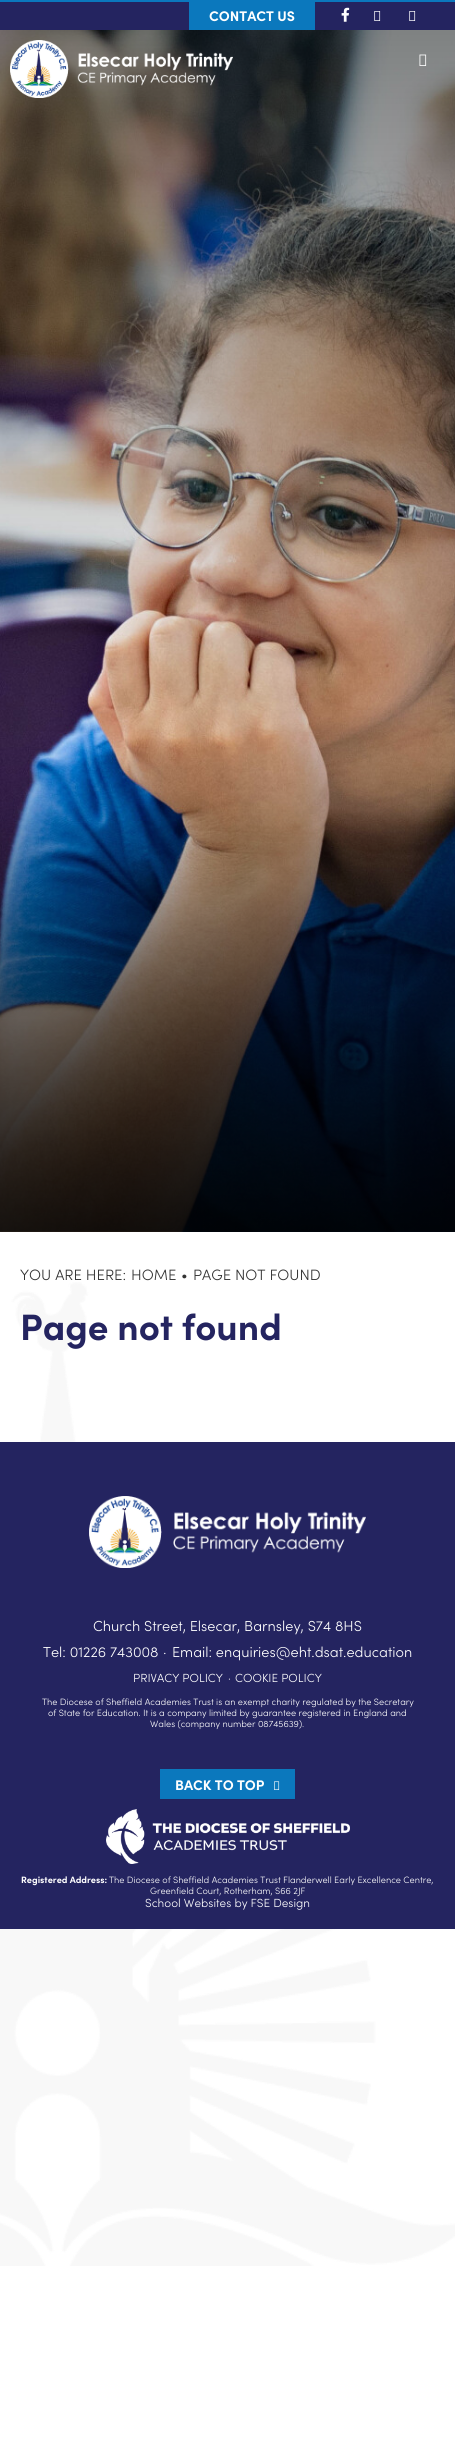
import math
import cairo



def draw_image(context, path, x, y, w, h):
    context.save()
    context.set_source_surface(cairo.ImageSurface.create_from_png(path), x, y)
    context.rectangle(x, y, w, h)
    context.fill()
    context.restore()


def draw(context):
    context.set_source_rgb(1, 1, 1)
    context.paint()
    context.set_source_rgb(11 / 255, 120 / 255, 189 / 255)
    context.rectangle(0, 0, 455, 2)
    context.fill()
    context.set_source_rgb(36 / 255, 36 / 255, 96 / 255)
    context.rectangle(0, 2, 455, 28)
    context.fill()
    context.set_source_rgb(11 / 255, 120 / 255, 189 / 255)
    context.rectangle(189, 2, 126, 28)
    context.fill()
    draw_image(context, "images/1.png", 341, 7, 9, 15)
    draw_image(context, "images/2.png", 374, 11, 7, 10)
    draw_image(context, "images/2.png", 409, 11, 7, 10)
    draw_image(context, "images/5.png", 0, 30, 455, 1202)
    draw_image(context, "images/3.png", 10, 40, 223, 58)
    draw_image(context, "images/4.png", 419, 54, 8, 12)
    draw_image(context, "images/6.png", 0, 1282, 455, 984)
    context.set_source_rgb(36 / 255, 36 / 255, 96 / 255)
    context.rectangle(0, 1442, 455, 487)
    context.fill()
    draw_image(context, "images/7.png", 89, 1496, 277, 72)
    context.set_source_rgb(11 / 255, 120 / 255, 189 / 255)
    context.rectangle(160, 1769, 135, 30)
    context.fill()
    draw_image(context, "images/8.png", 274, 1781, 6, 9)
    draw_image(context, "images/9.png", 106, 1809, 244, 55)
    context.select_font_face("Sofia", cairo.FontSlant.NORMAL, cairo.FontWeight.BOLD)
    context.set_font_size(14)
    context.set_source_rgb(1, 1, 1)
    context.move_to(209, 21)
    context.show_text("CONTACT US")
    context.select_font_face("Sofia Light")
    context.set_font_size(15)
    context.set_source_rgb(51 / 255, 51 / 255, 51 / 255)
    context.move_to(20, 1280)
    context.show_text("YOU ARE HERE:")
    context.move_to(131, 1280)
    context.show_text("HOME")
    context.move_to(181, 1280)
    context.show_text("•")
    context.move_to(193, 1280)
    context.show_text("PAGE NOT FOUND")
    context.select_font_face("Sofia", cairo.FontSlant.NORMAL, cairo.FontWeight.BOLD)
    context.set_font_size(36.75)
    context.set_source_rgb(36 / 255, 36 / 255, 96 / 255)
    context.move_to(20, 1340)
    context.show_text("Page not found")
    context.select_font_face("Sofia Light")
    context.set_font_size(14.5)
    context.set_source_rgb(1, 1, 1)
    context.move_to(93, 1631)
    context.show_text("Church Street, Elsecar, Barnsley, S74 8HS")
    context.move_to(43, 1657)
    context.show_text("Tel: 01226 743008")
    context.move_to(163, 1657)
    context.show_text("·")
    context.move_to(172, 1657)
    context.show_text("Email: enquiries@eht.dsat.education")
    context.set_font_size(11.8)
    context.move_to(133, 1682)
    context.show_text("PRIVACY POLICY")
    context.move_to(228, 1682)
    context.show_text("·")
    context.move_to(235, 1682)
    context.show_text("COOKIE POLICY")
    context.set_font_size(9.2)
    context.move_to(42, 1705)
    context.show_text("The Diocese of Sheffield Academies Trust is an exempt charity regulated by the Secretary")
    context.move_to(48, 1716)
    context.show_text("of State for Education. It is a company limited by guarantee registered in England and")
    context.move_to(150, 1727)
    context.show_text("Wales (company number 08745639).")
    context.select_font_face("Sofia", cairo.FontSlant.NORMAL, cairo.FontWeight.BOLD)
    context.set_font_size(14)
    context.move_to(175, 1790)
    context.show_text("BACK TO TOP")
    context.set_font_size(9.2)
    context.move_to(21, 1883)
    context.show_text("Registered Address:")
    context.select_font_face("Sofia Light")
    context.move_to(109, 1883)
    context.show_text("The Diocese of Sheffield Academies Trust Flanderwell Early Excellence Centre,")
    context.move_to(150, 1894)
    context.show_text("Greenfield Court, Rotherham, S66 2JF")
    context.set_font_size(11.8)
    context.move_to(145, 1907)
    context.show_text("School Websites by FSE Design")


surface = cairo.ImageSurface(cairo.Format.RGB24, 455, 2463)
context = cairo.Context(surface)
options = cairo.FontOptions()
options.set_hint_metrics(cairo.HintMetrics.OFF)
options.set_hint_style(cairo.HintStyle.NONE)
context.set_font_options(options)
context.set_miter_limit(4)
draw(context)
surface.write_to_png("out.png")
